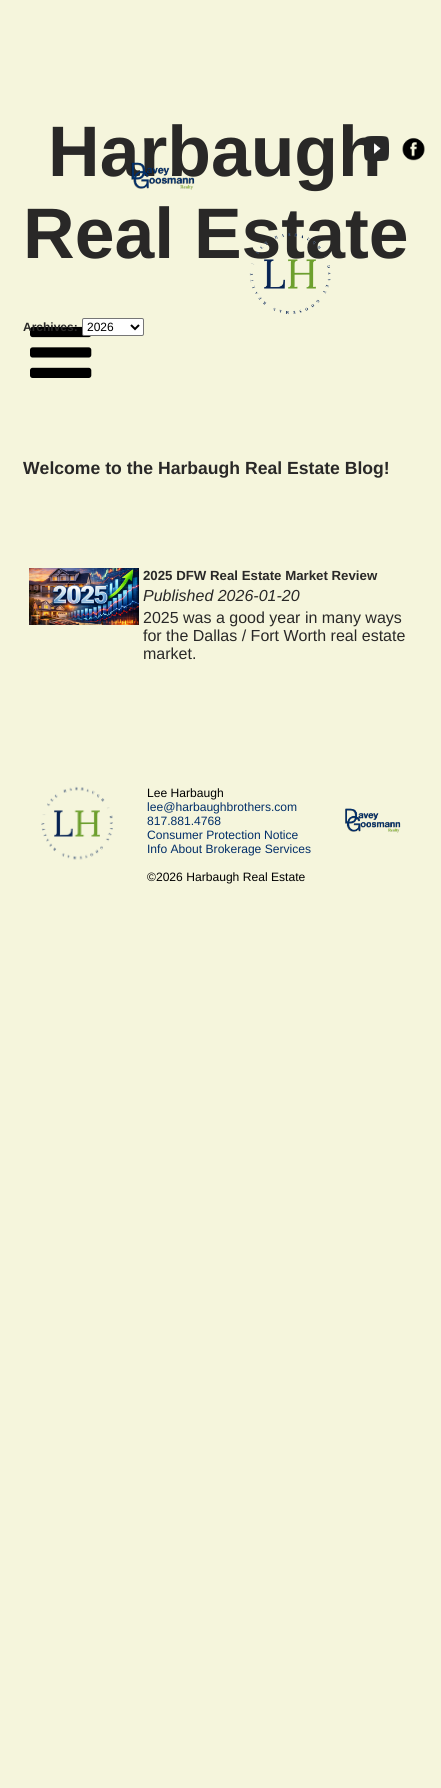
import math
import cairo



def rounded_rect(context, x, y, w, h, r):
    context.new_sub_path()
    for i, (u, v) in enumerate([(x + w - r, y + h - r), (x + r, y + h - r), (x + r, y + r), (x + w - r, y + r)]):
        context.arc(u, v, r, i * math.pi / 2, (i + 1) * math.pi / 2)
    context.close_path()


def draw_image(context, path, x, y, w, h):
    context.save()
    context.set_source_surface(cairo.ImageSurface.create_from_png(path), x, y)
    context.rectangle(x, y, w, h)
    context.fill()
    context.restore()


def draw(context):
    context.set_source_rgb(245 / 255, 245 / 255, 220 / 255)
    context.paint()
    draw_image(context, "images/2.png", 402, 137, 23, 24)
    draw_image(context, "images/5.png", 30, 326, 62, 52)
    context.set_source_rgb(1, 1, 1)
    rounded_rect(context, 82.5, 318.5, 61, 17, 1.5)
    context.fill_preserve()
    context.set_source_rgb(118 / 255, 118 / 255, 118 / 255)
    context.set_line_width(1)
    context.stroke()
    context.new_path()
    context.move_to(131, 325)
    context.line_to(135, 329)
    context.line_to(139, 325)
    context.set_source_rgb(0, 0, 0)
    context.set_line_width(2)
    context.stroke()
    draw_image(context, "images/6.png", 29, 568, 110, 57)
    draw_image(context, "images/7.png", 41, 786, 72, 74)
    draw_image(context, "images/8.png", 345, 808, 56, 25)
    context.select_font_face("Liberation Sans", cairo.FontSlant.NORMAL, cairo.FontWeight.BOLD)
    context.set_font_size(71.5)
    context.set_source_rgb(41 / 255, 40 / 255, 39 / 255)
    context.move_to(48, 176)
    context.show_text("Harbaugh")
    context.move_to(23, 258)
    context.show_text("Real Estate")
    draw_image(context, "images/1.png", 364, 136, 25, 25)
    draw_image(context, "images/3.png", 131, 162, 64, 28)
    draw_image(context, "images/4.png", 249, 233, 82, 82)
    context.set_font_size(12)
    context.move_to(23, 331)
    context.show_text("Archives:")
    context.select_font_face("Liberation Sans")
    context.set_source_rgb(0, 0, 0)
    context.move_to(87, 331)
    context.show_text("2026")
    context.select_font_face("Liberation Sans", cairo.FontSlant.NORMAL, cairo.FontWeight.BOLD)
    context.set_font_size(17.6)
    context.set_source_rgb(41 / 255, 40 / 255, 39 / 255)
    context.move_to(23, 474)
    context.show_text("Welcome to the Harbaugh Real Estate Blog!")
    context.set_font_size(13.25)
    context.move_to(143, 580)
    context.show_text("2025 DFW Real Estate Market Review")
    context.select_font_face("Liberation Sans", cairo.FontSlant.ITALIC)
    context.set_font_size(16)
    context.move_to(143, 601)
    context.show_text("Published 2026-01-20")
    context.select_font_face("Liberation Sans")
    context.move_to(143, 623)
    context.show_text("2025 was a good year in many ways")
    context.move_to(143, 641)
    context.show_text("for the Dallas / Fort Worth real estate")
    context.move_to(143, 659)
    context.show_text("market.")
    context.set_font_size(12.1)
    context.set_source_rgb(0, 0, 0)
    context.move_to(147, 797)
    context.show_text("Lee Harbaugh")
    context.set_source_rgb(2 / 255, 47 / 255, 105 / 255)
    context.move_to(147, 811)
    context.show_text("lee@harbaughbrothers.com")
    context.move_to(147, 825)
    context.show_text("817.881.4768")
    context.move_to(147, 839)
    context.show_text("Consumer Protection Notice")
    context.move_to(147, 853)
    context.show_text("Info About Brokerage Services")
    context.set_source_rgb(0, 0, 0)
    context.move_to(147, 881)
    context.show_text("©2026 Harbaugh Real Estate")


surface = cairo.ImageSurface(cairo.Format.RGB24, 441, 1788)
context = cairo.Context(surface)
options = cairo.FontOptions()
options.set_hint_metrics(cairo.HintMetrics.OFF)
options.set_hint_style(cairo.HintStyle.NONE)
context.set_font_options(options)
context.set_miter_limit(4)
draw(context)
surface.write_to_png("out.png")
